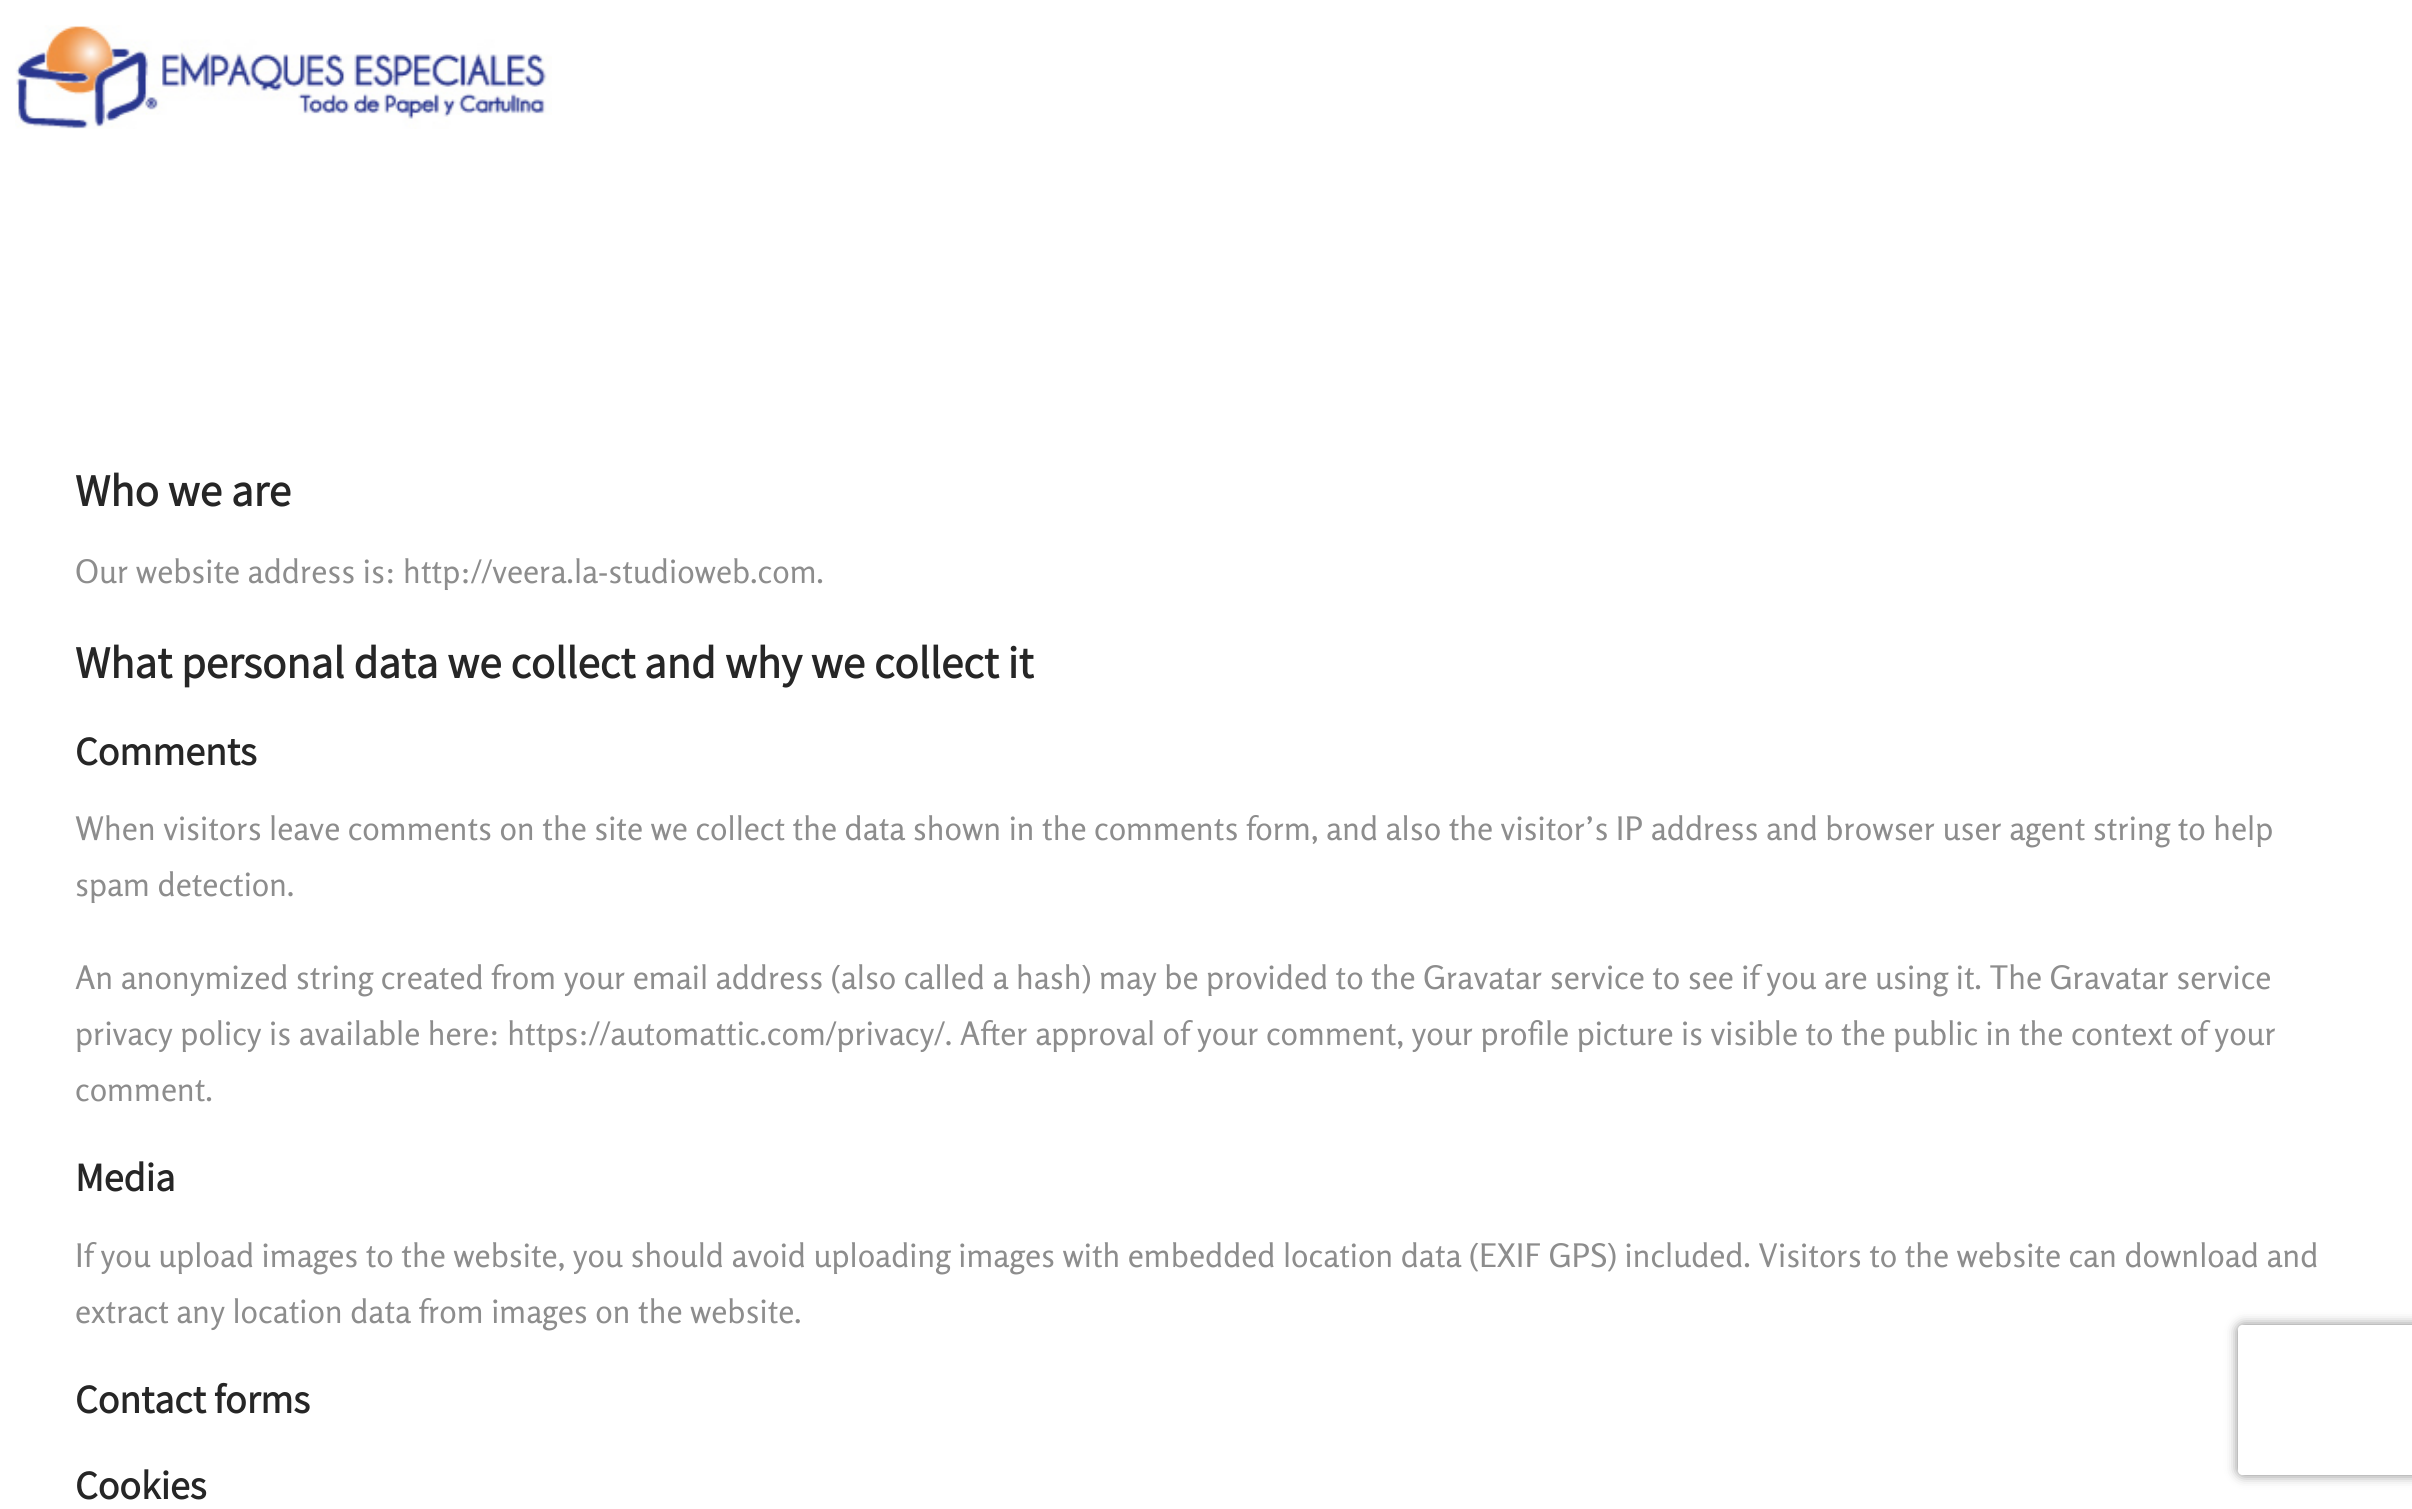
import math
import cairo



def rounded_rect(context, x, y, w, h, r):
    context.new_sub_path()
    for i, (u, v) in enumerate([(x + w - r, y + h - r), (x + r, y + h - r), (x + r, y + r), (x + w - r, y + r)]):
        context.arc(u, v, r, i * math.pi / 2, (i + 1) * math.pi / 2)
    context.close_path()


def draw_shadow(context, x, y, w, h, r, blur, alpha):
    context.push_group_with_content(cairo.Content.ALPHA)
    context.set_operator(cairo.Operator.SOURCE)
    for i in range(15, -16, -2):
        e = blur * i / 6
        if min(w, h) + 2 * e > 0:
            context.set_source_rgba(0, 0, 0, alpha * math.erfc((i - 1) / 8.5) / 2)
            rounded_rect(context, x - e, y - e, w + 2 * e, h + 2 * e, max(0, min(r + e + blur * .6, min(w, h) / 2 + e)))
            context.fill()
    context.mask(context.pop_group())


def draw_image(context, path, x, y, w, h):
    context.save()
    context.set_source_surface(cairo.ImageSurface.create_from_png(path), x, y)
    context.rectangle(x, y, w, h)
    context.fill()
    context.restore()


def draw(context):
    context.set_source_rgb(1, 1, 1)
    context.paint()
    draw_image(context, "images/1.png", 15, 25, 537, 104)
    context.save()
    context.set_fill_rule(cairo.FillRule.EVEN_ODD)
    context.new_path()
    context.move_to(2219, 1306)
    context.line_to(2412, 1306)
    context.line_to(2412, 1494)
    context.line_to(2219, 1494)
    context.close_path()
    context.move_to(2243, 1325)
    context.line_to(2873, 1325)
    context.curve_to(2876, 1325, 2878, 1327, 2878, 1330)
    context.line_to(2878, 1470)
    context.curve_to(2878, 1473, 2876, 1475, 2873, 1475)
    context.line_to(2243, 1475)
    context.curve_to(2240, 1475, 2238, 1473, 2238, 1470)
    context.line_to(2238, 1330)
    context.curve_to(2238, 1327, 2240, 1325, 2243, 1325)
    context.close_path()
    context.clip()
    context.set_source_rgb(128 / 255, 128 / 255, 128 / 255)
    draw_shadow(context, 2238, 1325, 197, 150, 5, 6, 1)
    context.restore()
    context.select_font_face("Assistant", cairo.FontSlant.NORMAL, cairo.FontWeight.BOLD)
    context.set_font_size(45)
    context.set_source_rgb(38 / 255, 38 / 255, 38 / 255)
    context.move_to(75, 506)
    context.show_text("Who we are")
    context.select_font_face("Rosario")
    context.set_font_size(32.5)
    context.set_source_rgb(141 / 255, 141 / 255, 141 / 255)
    context.move_to(75, 583)
    context.show_text("Our website address is: http://veera.la-studioweb.com.")
    context.select_font_face("Assistant", cairo.FontSlant.NORMAL, cairo.FontWeight.BOLD)
    context.set_font_size(45)
    context.set_source_rgb(38 / 255, 38 / 255, 38 / 255)
    context.move_to(75, 678)
    context.show_text("What personal data we collect and why we collect it")
    context.set_font_size(40)
    context.move_to(75, 765)
    context.show_text("Comments")
    context.select_font_face("Rosario")
    context.set_font_size(32.5)
    context.set_source_rgb(141 / 255, 141 / 255, 141 / 255)
    context.move_to(75, 840)
    context.show_text("When visitors leave comments on the site we collect the data shown in the comments form, and also the visitor’s IP address and browser user agent string to help")
    context.move_to(75, 896)
    context.show_text("spam detection.")
    context.move_to(75, 989)
    context.show_text("An anonymized string created from your email address (also called a hash) may be provided to the Gravatar service to see if you are using it. The Gravatar service")
    context.move_to(75, 1045)
    context.show_text("privacy policy is available here: https://automattic.com/privacy/. After approval of your comment, your profile picture is visible to the public in the context of your")
    context.move_to(75, 1101)
    context.show_text("comment.")
    context.select_font_face("Assistant", cairo.FontSlant.NORMAL, cairo.FontWeight.BOLD)
    context.set_font_size(40)
    context.set_source_rgb(38 / 255, 38 / 255, 38 / 255)
    context.move_to(75, 1191)
    context.show_text("Media")
    context.select_font_face("Rosario")
    context.set_font_size(32.5)
    context.set_source_rgb(141 / 255, 141 / 255, 141 / 255)
    context.move_to(75, 1267)
    context.show_text("If you upload images to the website, you should avoid uploading images with embedded location data (EXIF GPS) included. Visitors to the website can download and")
    context.move_to(75, 1323)
    context.show_text("extract any location data from images on the website.")
    context.select_font_face("Assistant", cairo.FontSlant.NORMAL, cairo.FontWeight.BOLD)
    context.set_font_size(40)
    context.set_source_rgb(38 / 255, 38 / 255, 38 / 255)
    context.move_to(75, 1413)
    context.show_text("Contact forms")
    context.move_to(75, 1499)
    context.show_text("Cookies")


surface = cairo.ImageSurface(cairo.Format.RGB24, 2412, 1509)
context = cairo.Context(surface)
options = cairo.FontOptions()
options.set_hint_metrics(cairo.HintMetrics.OFF)
options.set_hint_style(cairo.HintStyle.NONE)
context.set_font_options(options)
context.set_miter_limit(4)
draw(context)
surface.write_to_png("out.png")
